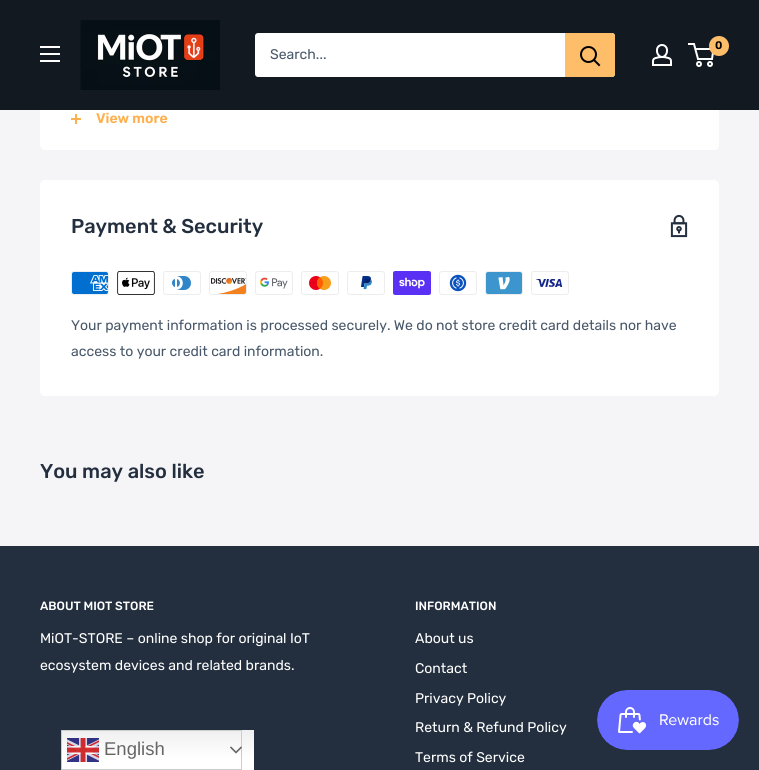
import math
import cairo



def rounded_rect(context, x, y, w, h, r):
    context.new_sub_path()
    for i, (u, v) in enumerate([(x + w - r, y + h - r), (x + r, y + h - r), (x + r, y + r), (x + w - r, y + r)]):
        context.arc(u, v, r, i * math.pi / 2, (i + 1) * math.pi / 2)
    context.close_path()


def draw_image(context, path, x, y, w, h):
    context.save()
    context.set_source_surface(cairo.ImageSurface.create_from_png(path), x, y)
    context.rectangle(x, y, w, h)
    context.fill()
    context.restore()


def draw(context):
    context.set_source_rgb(245 / 255, 245 / 255, 247 / 255)
    context.paint()
    rounded_rect(context, 40.5, -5.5, 678, 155, 4.5)
    context.set_source_rgb(1, 1, 1)
    context.set_line_width(1)
    context.stroke()
    context.set_source_rgb(19 / 255, 25 / 255, 33 / 255)
    context.rectangle(0, 0, 759, 110)
    context.fill()
    draw_image(context, "images/1.png", 40, 46, 20, 16)
    draw_image(context, "images/2.png", 80, 20, 140, 70)
    context.set_source_rgb(1, 1, 1)
    rounded_rect(context, 255, 33, 360, 44, 3)
    context.fill()
    context.set_source_rgb(254 / 255, 189 / 255, 105 / 255)
    context.new_path()
    context.move_to(565, 33)
    context.line_to(612, 33)
    context.curve_to(613.5, 33, 615, 34.5, 615, 36)
    context.line_to(615, 74)
    context.curve_to(615, 75.5, 613.5, 77, 612, 77)
    context.line_to(565, 77)
    context.close_path()
    context.fill()
    context.new_path()
    context.move_to(599, 65)
    context.line_to(594, 60)
    context.set_source_rgb(0, 0, 0)
    context.set_line_width(2)
    context.set_line_cap(cairo.LineCap.SQUARE)
    context.stroke()
    context.arc(588.5, 54.5, 7.5, 0, 2 * math.pi)
    context.set_line_cap(cairo.LineCap.BUTT)
    context.stroke()
    draw_image(context, "images/3.png", 652, 44, 20, 22)
    context.arc(699, 64, 2, 0, 2 * math.pi)
    context.set_source_rgb(1, 1, 1)
    context.stroke()
    context.arc(710, 64, 2, 0, 2 * math.pi)
    context.stroke()
    context.new_path()
    context.move_to(695.5, 49)
    context.line_to(713.5, 49)
    context.line_to(712, 59)
    context.line_to(698, 59)
    context.line_to(694, 44)
    context.line_to(688, 44)
    context.stroke()
    context.set_source_rgb(254 / 255, 189 / 255, 105 / 255)
    context.arc(719, 46, 10, 0, 2 * math.pi)
    context.fill()
    context.set_source_rgb(1, 1, 1)
    context.rectangle(41, 110, 677, 39)
    context.fill()
    context.set_source_rgb(253 / 255, 176 / 255, 77 / 255)
    context.rectangle(75, 114, 2, 10)
    context.fill()
    context.rectangle(71, 118, 10, 2)
    context.fill()
    context.set_source_rgb(1, 1, 1)
    rounded_rect(context, 40, 180, 679, 216, 5)
    context.fill()
    draw_image(context, "images/4.png", 670, 214, 18, 24)
    draw_image(context, "images/5.png", 71, 271, 38, 24)
    draw_image(context, "images/6.png", 117, 271, 38, 24)
    draw_image(context, "images/7.png", 163, 271, 38, 24)
    draw_image(context, "images/8.png", 209, 271, 38, 24)
    draw_image(context, "images/9.png", 255, 271, 38, 24)
    draw_image(context, "images/10.png", 301, 271, 38, 24)
    draw_image(context, "images/11.png", 347, 271, 38, 24)
    draw_image(context, "images/12.png", 393, 271, 38, 24)
    draw_image(context, "images/13.png", 439, 271, 38, 24)
    draw_image(context, "images/14.png", 485, 271, 38, 24)
    draw_image(context, "images/15.png", 531, 271, 38, 24)
    context.set_source_rgb(35 / 255, 47 / 255, 62 / 255)
    context.rectangle(0, 546, 759, 224)
    context.fill()
    draw_image(context, "images/16.png", 597, 690, 142, 60)
    gradient = cairo.LinearGradient(158, 730, 158, 770)
    gradient.add_color_stop_rgba(0, 239 / 255, 239 / 255, 239 / 255, 1)
    gradient.add_color_stop_rgba(0.7, 1, 1, 1, 1)
    context.set_source(gradient)
    context.rectangle(62, 730, 192, 40)
    context.fill()
    context.rectangle(61.5, 730.5, 180, 39)
    context.set_source_rgb(204 / 255, 204 / 255, 204 / 255)
    context.set_line_width(1)
    context.stroke()
    draw_image(context, "images/17.png", 67, 738, 32, 24)
    draw_image(context, "images/18.png", 230, 746, 12, 8)
    context.select_font_face("Rubik")
    context.set_font_size(14)
    context.set_source_rgb(72 / 255, 87 / 255, 105 / 255)
    context.move_to(270, 59)
    context.show_text("Search...")
    context.select_font_face("Rubik SemiBold")
    context.set_font_size(11)
    context.set_source_rgb(0, 0, 0)
    context.move_to(715, 49)
    context.show_text("0")
    context.set_font_size(14)
    context.set_source_rgb(253 / 255, 176 / 255, 77 / 255)
    context.move_to(96, 123)
    context.show_text("View more")
    context.select_font_face("Rubik Medium")
    context.set_font_size(20)
    context.set_source_rgb(35 / 255, 47 / 255, 62 / 255)
    context.move_to(71, 233)
    context.show_text("Payment & Security")
    context.select_font_face("Rubik")
    context.set_font_size(14)
    context.set_source_rgb(72 / 255, 87 / 255, 105 / 255)
    context.move_to(71, 330)
    context.show_text("Your payment information is processed securely. We do not store credit card details nor have")
    context.move_to(71, 356)
    context.show_text("access to your credit card information.")
    context.select_font_face("Rubik Medium")
    context.set_font_size(20)
    context.set_source_rgb(35 / 255, 47 / 255, 62 / 255)
    context.move_to(40, 478)
    context.show_text("You may also like")
    context.set_font_size(12)
    context.set_source_rgb(1, 1, 1)
    context.move_to(40, 610)
    context.show_text("ABOUT MIOT STORE")
    context.select_font_face("Rubik")
    context.set_font_size(14)
    context.move_to(40, 643)
    context.show_text("MiOT-STORE – online shop for original IoT")
    context.move_to(40, 670)
    context.show_text("ecosystem devices and related brands.")
    context.select_font_face("Rubik Medium")
    context.set_font_size(12)
    context.move_to(415, 610)
    context.show_text("INFORMATION")
    context.select_font_face("Rubik")
    context.set_font_size(14)
    context.move_to(415, 643)
    context.show_text("About us")
    context.move_to(415, 673)
    context.show_text("Contact")
    context.move_to(415, 703)
    context.show_text("Privacy Policy")
    context.move_to(415, 732)
    context.show_text("Return & Refund Policy")
    context.move_to(415, 762)
    context.show_text("Terms of Service")
    context.select_font_face("Liberation Sans")
    context.set_font_size(18.5)
    context.set_source_rgb(102 / 255, 102 / 255, 102 / 255)
    context.move_to(104, 755)
    context.show_text("English")


surface = cairo.ImageSurface(cairo.Format.RGB24, 759, 770)
context = cairo.Context(surface)
options = cairo.FontOptions()
options.set_hint_metrics(cairo.HintMetrics.OFF)
options.set_hint_style(cairo.HintStyle.NONE)
context.set_font_options(options)
context.set_miter_limit(4)
draw(context)
surface.write_to_png("out.png")
